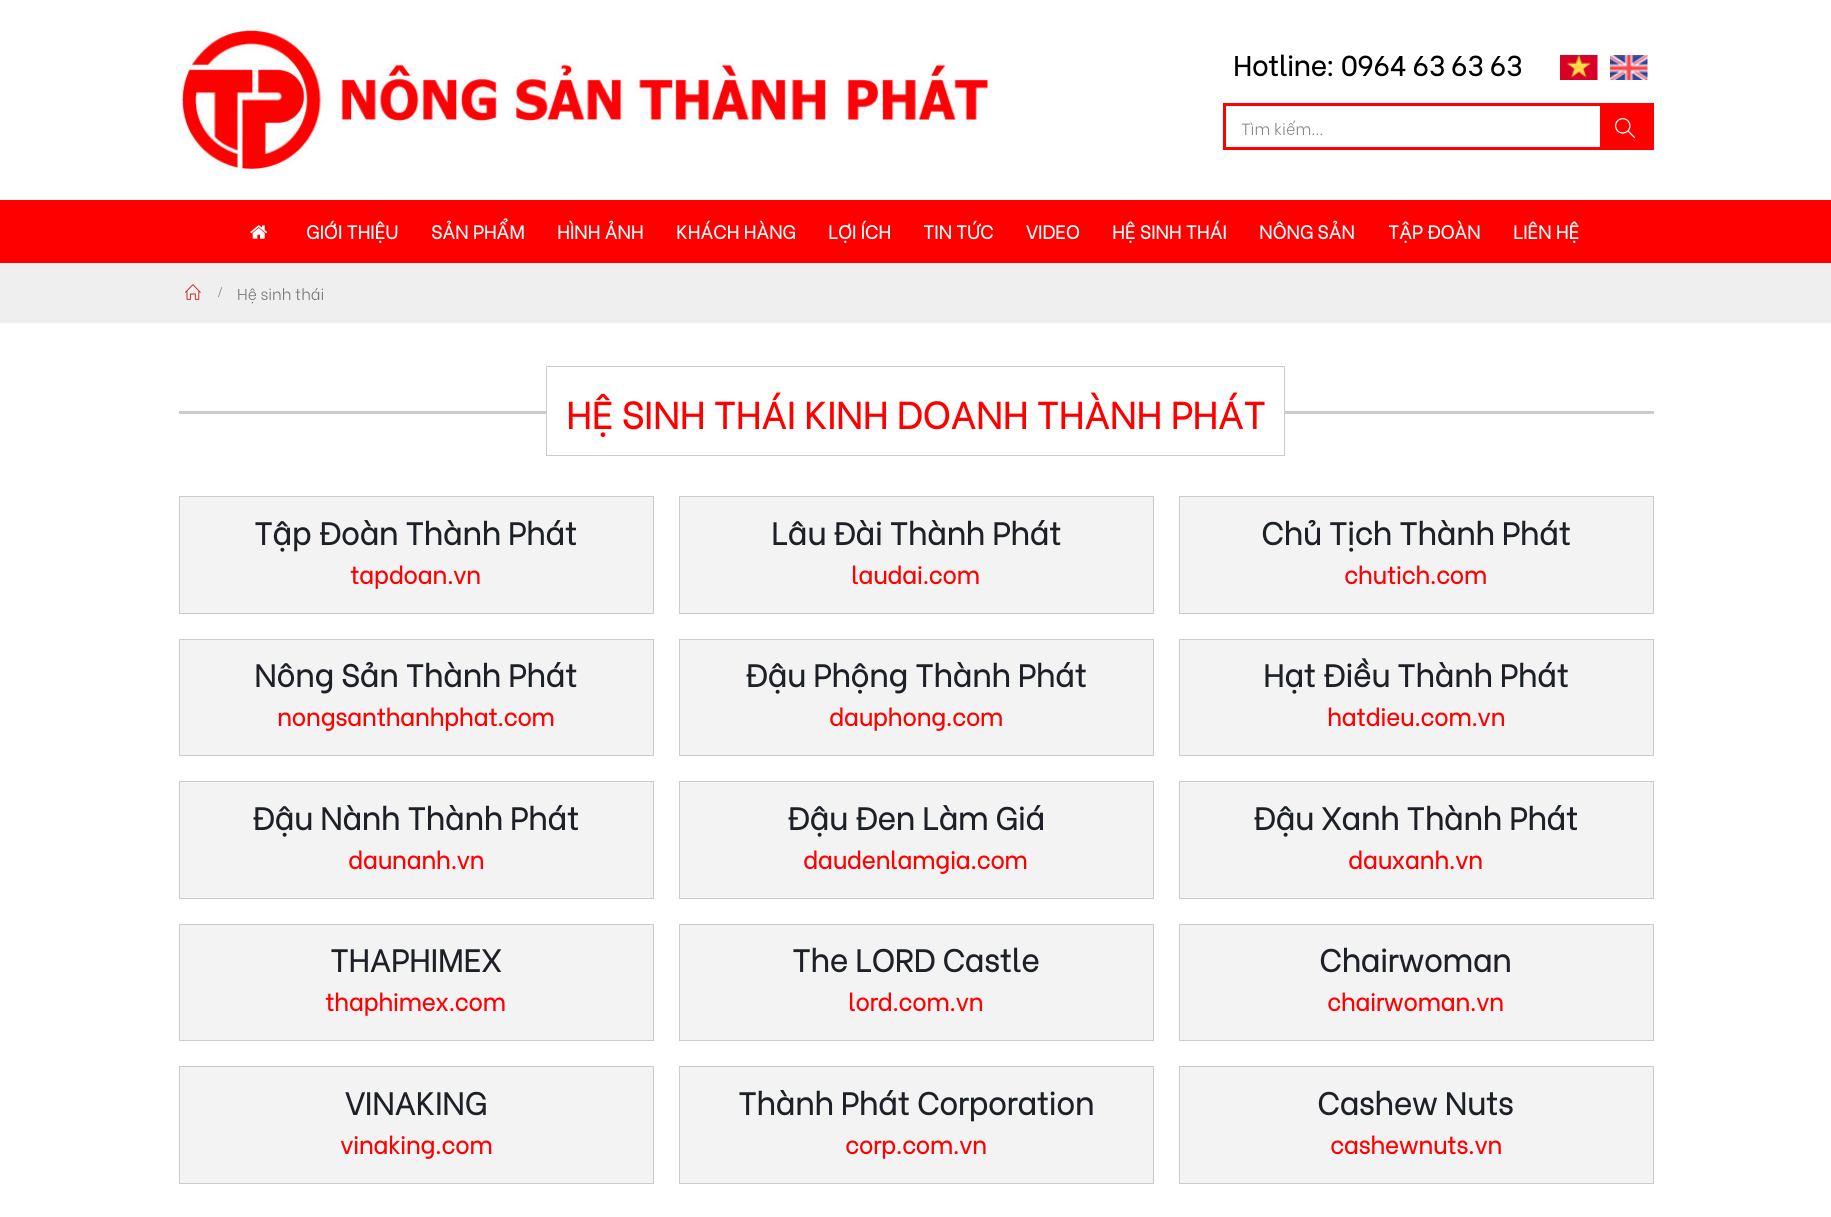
import math
import cairo



def draw_image(context, path, x, y, w, h):
    context.save()
    context.set_source_surface(cairo.ImageSurface.create_from_png(path), x, y)
    context.rectangle(x, y, w, h)
    context.fill()
    context.restore()


def draw(context):
    context.set_source_rgb(1, 1, 1)
    context.paint()
    draw_image(context, "images/1.png", 179, 27, 811, 147)
    draw_image(context, "images/2.png", 1560, 55, 38, 25)
    draw_image(context, "images/3.png", 1610, 55, 38, 25)
    context.rectangle(1224.5, 104.5, 428, 44)
    context.set_source_rgb(1, 0, 0)
    context.set_line_width(3)
    context.stroke()
    context.rectangle(1600, 106, 51, 41)
    context.fill()
    draw_image(context, "images/4.png", 1614, 118, 21, 20)
    context.rectangle(0, 200, 1831, 63)
    context.fill()
    draw_image(context, "images/5.png", 250, 225, 18, 14)
    context.set_source_rgb(239 / 255, 239 / 255, 239 / 255)
    context.rectangle(0, 263, 1831, 60)
    context.fill()
    draw_image(context, "images/6.png", 185, 284, 16, 16)
    context.set_source_rgb(206 / 255, 202 / 255, 202 / 255)
    context.rectangle(179, 411, 1475, 3)
    context.fill()
    context.set_source_rgb(1, 1, 1)
    context.rectangle(547, 411, 737, 3)
    context.fill()
    context.rectangle(546.5, 366.5, 738, 89)
    context.set_source_rgb(206 / 255, 202 / 255, 202 / 255)
    context.set_line_width(1)
    context.stroke()
    context.set_source_rgb(243 / 255, 243 / 255, 243 / 255)
    context.rectangle(179.5, 496.5, 474, 117)
    context.fill_preserve()
    context.set_source_rgb(204 / 255, 204 / 255, 204 / 255)
    context.stroke()
    context.set_source_rgb(243 / 255, 243 / 255, 243 / 255)
    context.rectangle(679.5, 496.5, 474, 117)
    context.fill_preserve()
    context.set_source_rgb(204 / 255, 204 / 255, 204 / 255)
    context.stroke()
    context.set_source_rgb(243 / 255, 243 / 255, 243 / 255)
    context.rectangle(1179.5, 496.5, 474, 117)
    context.fill_preserve()
    context.set_source_rgb(204 / 255, 204 / 255, 204 / 255)
    context.stroke()
    context.set_source_rgb(243 / 255, 243 / 255, 243 / 255)
    context.rectangle(179.5, 639.5, 474, 116)
    context.fill_preserve()
    context.set_source_rgb(204 / 255, 204 / 255, 204 / 255)
    context.stroke()
    context.set_source_rgb(243 / 255, 243 / 255, 243 / 255)
    context.rectangle(679.5, 639.5, 474, 116)
    context.fill_preserve()
    context.set_source_rgb(204 / 255, 204 / 255, 204 / 255)
    context.stroke()
    context.set_source_rgb(243 / 255, 243 / 255, 243 / 255)
    context.rectangle(1179.5, 639.5, 474, 116)
    context.fill_preserve()
    context.set_source_rgb(204 / 255, 204 / 255, 204 / 255)
    context.stroke()
    context.set_source_rgb(243 / 255, 243 / 255, 243 / 255)
    context.rectangle(179.5, 781.5, 474, 117)
    context.fill_preserve()
    context.set_source_rgb(204 / 255, 204 / 255, 204 / 255)
    context.stroke()
    context.set_source_rgb(243 / 255, 243 / 255, 243 / 255)
    context.rectangle(679.5, 781.5, 474, 117)
    context.fill_preserve()
    context.set_source_rgb(204 / 255, 204 / 255, 204 / 255)
    context.stroke()
    context.set_source_rgb(243 / 255, 243 / 255, 243 / 255)
    context.rectangle(1179.5, 781.5, 474, 117)
    context.fill_preserve()
    context.set_source_rgb(204 / 255, 204 / 255, 204 / 255)
    context.stroke()
    context.set_source_rgb(243 / 255, 243 / 255, 243 / 255)
    context.rectangle(179.5, 924.5, 474, 116)
    context.fill_preserve()
    context.set_source_rgb(204 / 255, 204 / 255, 204 / 255)
    context.stroke()
    context.set_source_rgb(243 / 255, 243 / 255, 243 / 255)
    context.rectangle(679.5, 924.5, 474, 116)
    context.fill_preserve()
    context.set_source_rgb(204 / 255, 204 / 255, 204 / 255)
    context.stroke()
    context.set_source_rgb(243 / 255, 243 / 255, 243 / 255)
    context.rectangle(1179.5, 924.5, 474, 116)
    context.fill_preserve()
    context.set_source_rgb(204 / 255, 204 / 255, 204 / 255)
    context.stroke()
    context.set_source_rgb(243 / 255, 243 / 255, 243 / 255)
    context.rectangle(179.5, 1066.5, 474, 117)
    context.fill_preserve()
    context.set_source_rgb(204 / 255, 204 / 255, 204 / 255)
    context.stroke()
    context.set_source_rgb(243 / 255, 243 / 255, 243 / 255)
    context.rectangle(679.5, 1066.5, 474, 117)
    context.fill_preserve()
    context.set_source_rgb(204 / 255, 204 / 255, 204 / 255)
    context.stroke()
    context.set_source_rgb(243 / 255, 243 / 255, 243 / 255)
    context.rectangle(1179.5, 1066.5, 474, 117)
    context.fill_preserve()
    context.set_source_rgb(204 / 255, 204 / 255, 204 / 255)
    context.stroke()
    context.select_font_face("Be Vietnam", cairo.FontSlant.NORMAL, cairo.FontWeight.BOLD)
    context.set_font_size(27.5)
    context.set_source_rgb(0, 0, 0)
    context.move_to(1233, 76)
    context.show_text("Hotline: 0964 63 63 63")
    context.select_font_face("Be Vietnam Light")
    context.set_font_size(16.25)
    context.set_source_rgb(136 / 255, 136 / 255, 136 / 255)
    context.move_to(1241, 135)
    context.show_text("Tìm kiếm…")
    context.select_font_face("Be Vietnam", cairo.FontSlant.NORMAL, cairo.FontWeight.BOLD)
    context.set_font_size(18.75)
    context.set_source_rgb(1, 1, 1)
    context.move_to(306, 239)
    context.show_text("GIỚI THIỆU")
    context.move_to(431, 239)
    context.show_text("SẢN PHẨM")
    context.move_to(557, 239)
    context.show_text("HÌNH ẢNH")
    context.move_to(676, 239)
    context.show_text("KHÁCH HÀNG")
    context.move_to(828, 239)
    context.show_text("LỢI ÍCH")
    context.move_to(923, 239)
    context.show_text("TIN TỨC")
    context.move_to(1026, 239)
    context.show_text("VIDEO")
    context.move_to(1112, 239)
    context.show_text("HỆ SINH THÁI")
    context.move_to(1259, 239)
    context.show_text("NÔNG SẢN")
    context.move_to(1388, 239)
    context.show_text("TẬP ĐOÀN")
    context.move_to(1513, 239)
    context.show_text("LIÊN HỆ")
    context.select_font_face("Liberation Serif")
    context.set_font_size(15)
    context.set_source_rgb(119 / 255, 119 / 255, 119 / 255)
    context.move_to(218, 297)
    context.show_text("/")
    context.select_font_face("Be Vietnam Light")
    context.set_font_size(15.75)
    context.move_to(237, 300)
    context.show_text("Hệ sinh thái")
    context.select_font_face("Be Vietnam", cairo.FontSlant.NORMAL, cairo.FontWeight.BOLD)
    context.set_font_size(37.5)
    context.set_source_rgb(1, 0, 0)
    context.move_to(566, 429)
    context.show_text("HỆ SINH THÁI KINH DOANH THÀNH PHÁT")
    context.set_font_size(31.25)
    context.set_source_rgb(29 / 255, 33 / 255, 39 / 255)
    context.move_to(254, 545)
    context.show_text("Tập Đoàn Thành Phát")
    context.set_font_size(23.75)
    context.set_source_rgb(1, 0, 0)
    context.move_to(350, 584)
    context.show_text("tapdoan.vn")
    context.set_font_size(31.25)
    context.set_source_rgb(29 / 255, 33 / 255, 39 / 255)
    context.move_to(771, 545)
    context.show_text("Lâu Đài Thành Phát")
    context.set_font_size(23.75)
    context.set_source_rgb(1, 0, 0)
    context.move_to(851, 584)
    context.show_text("laudai.com")
    context.set_font_size(31.25)
    context.set_source_rgb(29 / 255, 33 / 255, 39 / 255)
    context.move_to(1261, 545)
    context.show_text("Chủ Tịch Thành Phát")
    context.set_font_size(23.75)
    context.set_source_rgb(1, 0, 0)
    context.move_to(1344, 584)
    context.show_text("chutich.com")
    context.set_font_size(31.25)
    context.set_source_rgb(29 / 255, 33 / 255, 39 / 255)
    context.move_to(254, 687)
    context.show_text("Nông Sản Thành Phát")
    context.set_font_size(23.75)
    context.set_source_rgb(1, 0, 0)
    context.move_to(277, 726)
    context.show_text("nongsanthanhphat.com")
    context.set_font_size(31.25)
    context.set_source_rgb(29 / 255, 33 / 255, 39 / 255)
    context.move_to(745, 687)
    context.show_text("Đậu Phộng Thành Phát")
    context.set_font_size(23.75)
    context.set_source_rgb(1, 0, 0)
    context.move_to(829, 726)
    context.show_text("dauphong.com")
    context.set_font_size(31.25)
    context.set_source_rgb(29 / 255, 33 / 255, 39 / 255)
    context.move_to(1263, 687)
    context.show_text("Hạt Điều Thành Phát")
    context.set_font_size(23.75)
    context.set_source_rgb(1, 0, 0)
    context.move_to(1327, 726)
    context.show_text("hatdieu.com.vn")
    context.set_font_size(31.25)
    context.set_source_rgb(29 / 255, 33 / 255, 39 / 255)
    context.move_to(252, 830)
    context.show_text("Đậu Nành Thành Phát")
    context.set_font_size(23.75)
    context.set_source_rgb(1, 0, 0)
    context.move_to(348, 869)
    context.show_text("daunanh.vn")
    context.set_font_size(31.25)
    context.set_source_rgb(29 / 255, 33 / 255, 39 / 255)
    context.move_to(787, 830)
    context.show_text("Đậu Đen Làm Giá")
    context.set_font_size(23.75)
    context.set_source_rgb(1, 0, 0)
    context.move_to(803, 869)
    context.show_text("daudenlamgia.com")
    context.set_font_size(31.25)
    context.set_source_rgb(29 / 255, 33 / 255, 39 / 255)
    context.move_to(1253, 830)
    context.show_text("Đậu Xanh Thành Phát")
    context.set_font_size(23.75)
    context.set_source_rgb(1, 0, 0)
    context.move_to(1348, 869)
    context.show_text("dauxanh.vn")
    context.set_font_size(31.25)
    context.set_source_rgb(29 / 255, 33 / 255, 39 / 255)
    context.move_to(330, 972)
    context.show_text("THAPHIMEX")
    context.set_font_size(23.75)
    context.set_source_rgb(1, 0, 0)
    context.move_to(325, 1011)
    context.show_text("thaphimex.com")
    context.set_font_size(31.25)
    context.set_source_rgb(29 / 255, 33 / 255, 39 / 255)
    context.move_to(792, 972)
    context.show_text("The LORD Castle")
    context.set_font_size(23.75)
    context.set_source_rgb(1, 0, 0)
    context.move_to(848, 1011)
    context.show_text("lord.com.vn")
    context.set_font_size(31.25)
    context.set_source_rgb(29 / 255, 33 / 255, 39 / 255)
    context.move_to(1319, 972)
    context.show_text("Chairwoman")
    context.set_font_size(23.75)
    context.set_source_rgb(1, 0, 0)
    context.move_to(1327, 1011)
    context.show_text("chairwoman.vn")
    context.set_font_size(31.25)
    context.set_source_rgb(29 / 255, 33 / 255, 39 / 255)
    context.move_to(345, 1115)
    context.show_text("VINAKING")
    context.set_font_size(23.75)
    context.set_source_rgb(1, 0, 0)
    context.move_to(340, 1154)
    context.show_text("vinaking.com")
    context.set_font_size(31.25)
    context.set_source_rgb(29 / 255, 33 / 255, 39 / 255)
    context.move_to(738, 1115)
    context.show_text("Thành Phát Corporation")
    context.set_font_size(23.75)
    context.set_source_rgb(1, 0, 0)
    context.move_to(845, 1154)
    context.show_text("corp.com.vn")
    context.set_font_size(31.25)
    context.set_source_rgb(29 / 255, 33 / 255, 39 / 255)
    context.move_to(1317, 1115)
    context.show_text("Cashew Nuts")
    context.set_font_size(23.75)
    context.set_source_rgb(1, 0, 0)
    context.move_to(1330, 1154)
    context.show_text("cashewnuts.vn")


surface = cairo.ImageSurface(cairo.Format.RGB24, 1831, 1217)
context = cairo.Context(surface)
options = cairo.FontOptions()
options.set_hint_metrics(cairo.HintMetrics.OFF)
options.set_hint_style(cairo.HintStyle.NONE)
context.set_font_options(options)
context.set_miter_limit(4)
draw(context)
surface.write_to_png("out.png")
